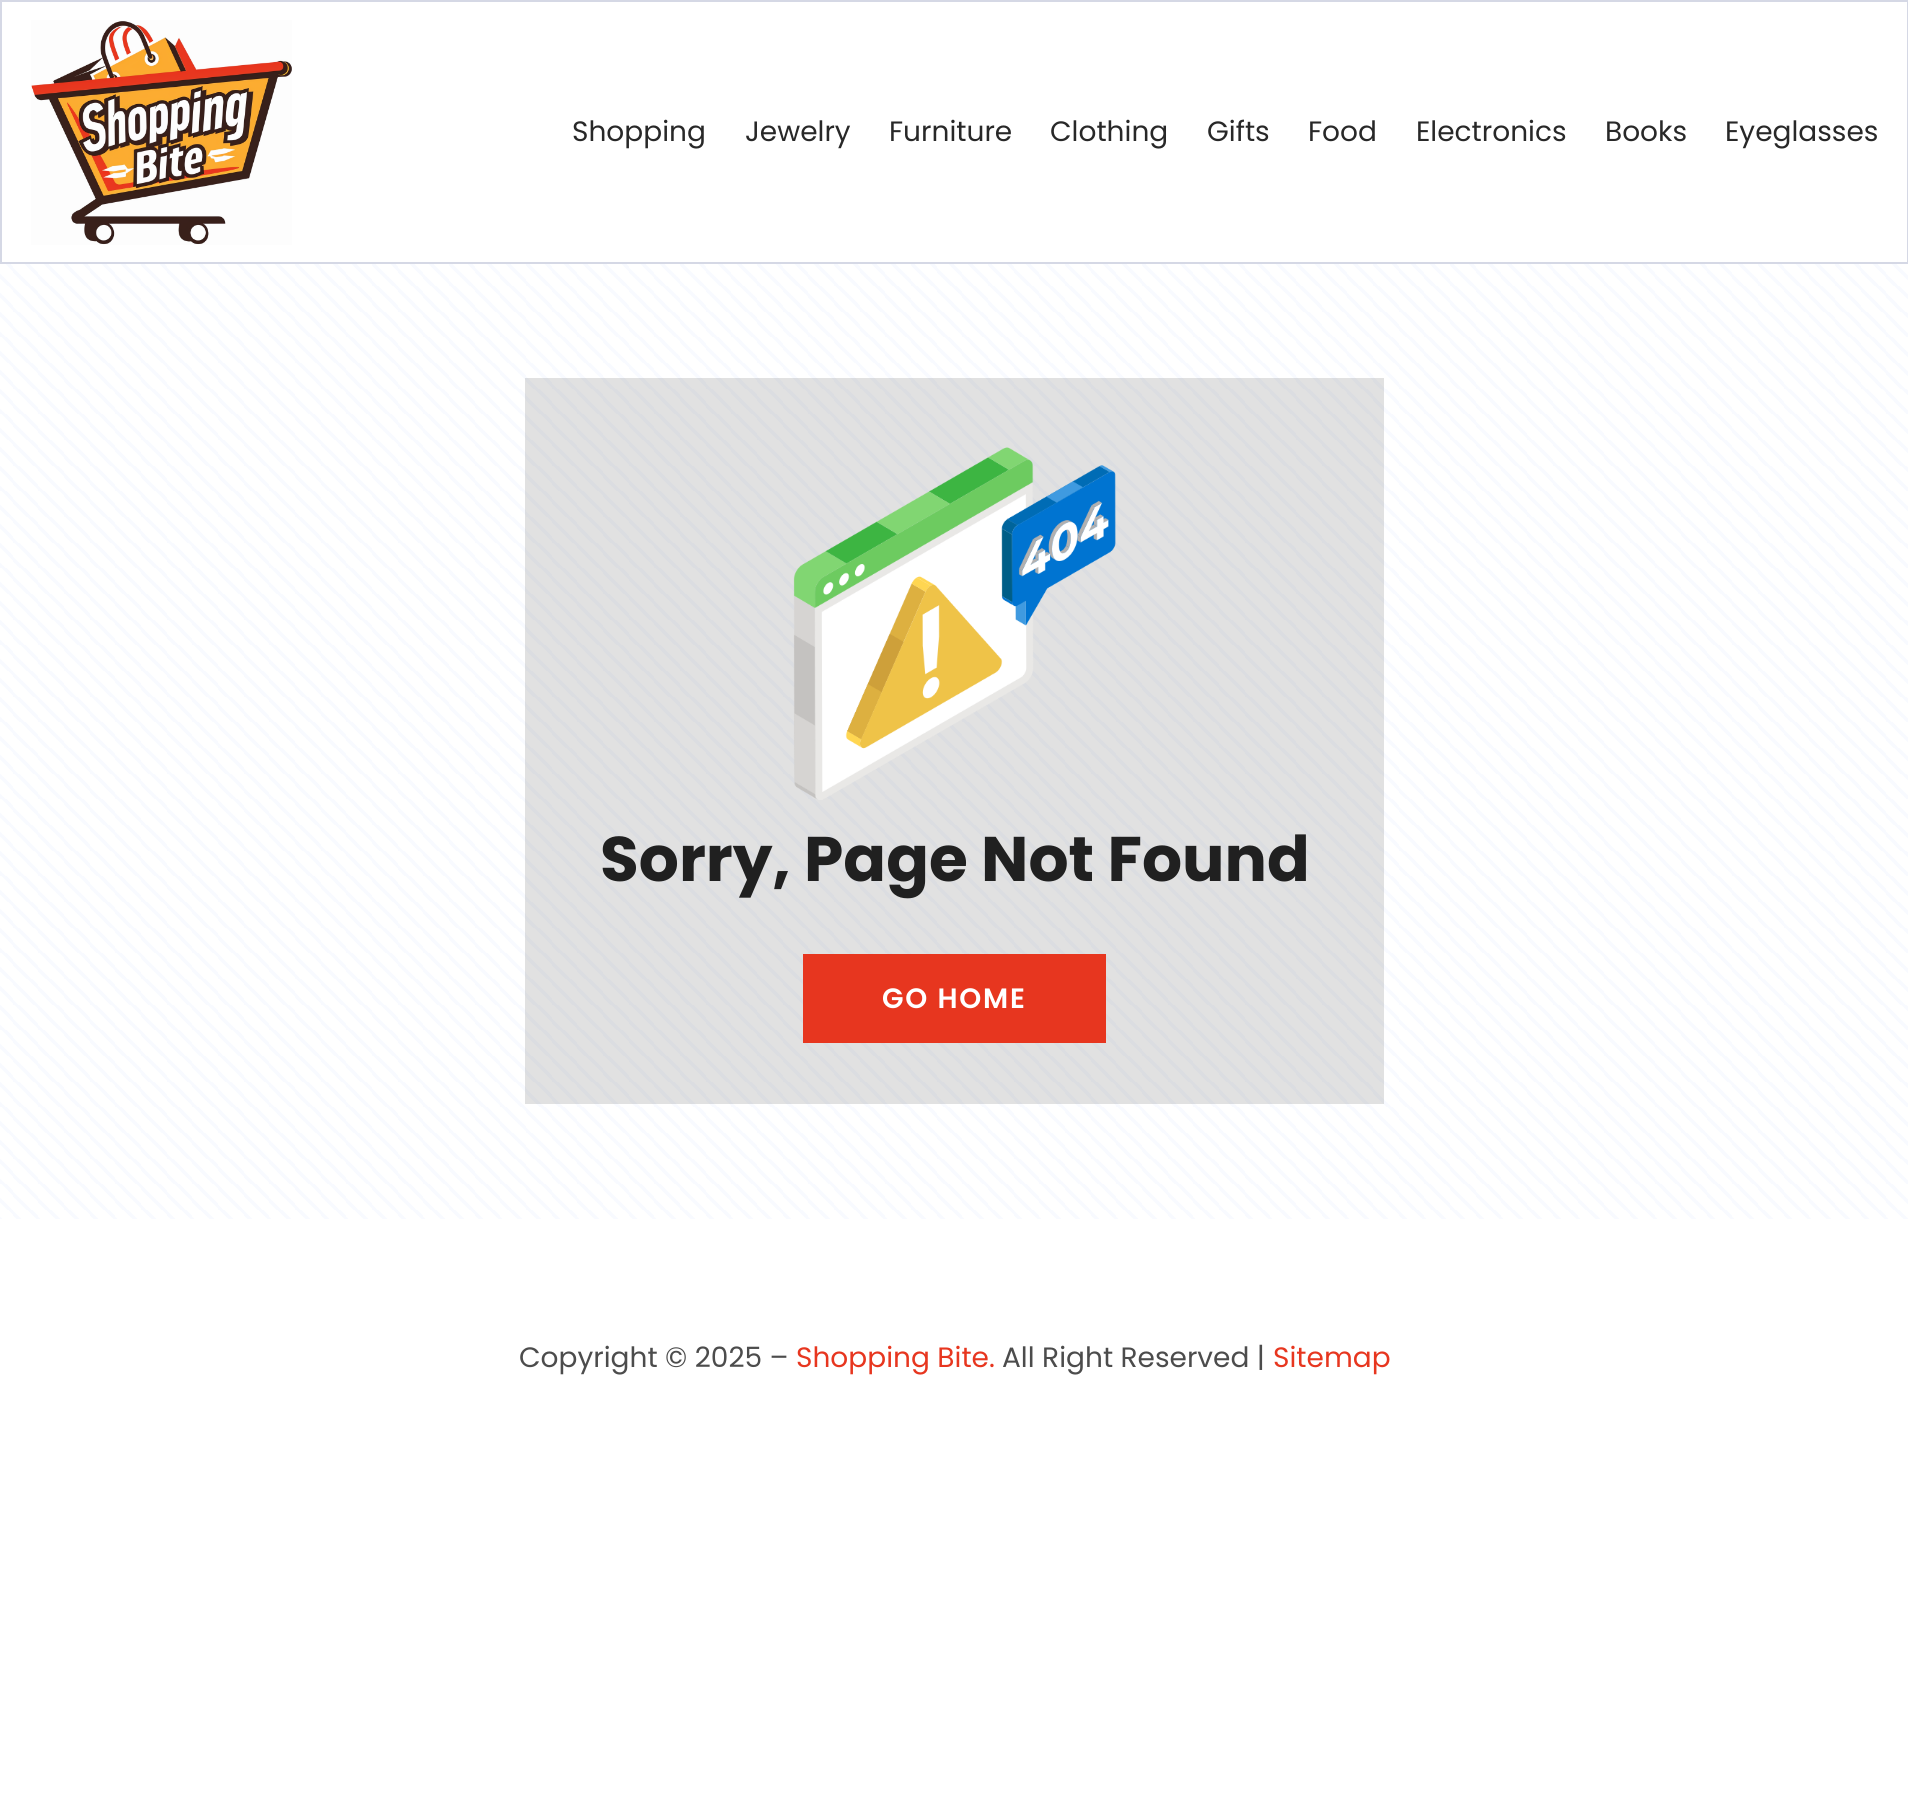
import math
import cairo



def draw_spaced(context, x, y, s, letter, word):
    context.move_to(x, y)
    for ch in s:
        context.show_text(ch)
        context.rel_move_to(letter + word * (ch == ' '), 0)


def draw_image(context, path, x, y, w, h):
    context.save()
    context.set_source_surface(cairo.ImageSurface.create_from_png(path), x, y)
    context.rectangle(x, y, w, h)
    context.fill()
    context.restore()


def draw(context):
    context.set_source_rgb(1, 1, 1)
    context.paint()
    context.rectangle(1, 1, 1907, 262)
    context.set_source_rgb(213 / 255, 216 / 255, 229 / 255)
    context.stroke()
    draw_image(context, "images/1.png", 31, 20, 261, 225)
    draw_image(context, "images/2.png", 0, 264, 1908, 955)
    context.set_source_rgba(0, 0, 0, 0.12)
    context.rectangle(525, 378, 859, 726)
    context.fill()
    draw_image(context, "images/3.png", 793, 447, 323, 353)
    context.set_source_rgb(231 / 255, 54 / 255, 31 / 255)
    context.rectangle(803, 954, 303, 89)
    context.fill()
    context.select_font_face("Poppins")
    context.set_font_size(28)
    context.set_source_rgb(40 / 255, 40 / 255, 40 / 255)
    context.move_to(572, 141)
    context.show_text("Shopping")
    context.move_to(745, 141)
    context.show_text("Jewelry")
    context.move_to(889, 141)
    context.show_text("Furniture")
    context.move_to(1050, 141)
    context.show_text("Clothing")
    context.move_to(1207, 141)
    context.show_text("Gifts")
    context.move_to(1308, 141)
    context.show_text("Food")
    context.move_to(1416, 141)
    context.show_text("Electronics")
    context.move_to(1605, 141)
    context.show_text("Books")
    context.move_to(1725, 141)
    context.show_text("Eyeglasses")
    context.select_font_face("Poppins", cairo.FontSlant.NORMAL, cairo.FontWeight.BOLD)
    context.set_font_size(63)
    context.set_source_rgb(32 / 255, 32 / 255, 32 / 255)
    context.move_to(600, 881)
    context.show_text("Sorry, Page Not Found")
    context.select_font_face("Poppins SemiBold")
    context.set_font_size(28)
    context.set_source_rgb(1, 1, 1)
    draw_spaced(context, 882, 1008, "GO HOME", 1.75, 0)
    context.select_font_face("Poppins")
    context.set_source_rgb(76 / 255, 76 / 255, 76 / 255)
    context.move_to(519, 1367)
    context.show_text("Copyright © 2025 –")
    context.set_source_rgb(231 / 255, 54 / 255, 31 / 255)
    context.move_to(796, 1367)
    context.show_text("Shopping Bite.")
    context.set_source_rgb(76 / 255, 76 / 255, 76 / 255)
    context.move_to(1002, 1367)
    context.show_text("All Right Reserved |")
    context.set_source_rgb(231 / 255, 54 / 255, 31 / 255)
    context.move_to(1273, 1367)
    context.show_text("Sitemap")


surface = cairo.ImageSurface(cairo.Format.RGB24, 1908, 1793)
context = cairo.Context(surface)
options = cairo.FontOptions()
options.set_hint_metrics(cairo.HintMetrics.OFF)
options.set_hint_style(cairo.HintStyle.NONE)
context.set_font_options(options)
context.set_miter_limit(4)
draw(context)
surface.write_to_png("out.png")
